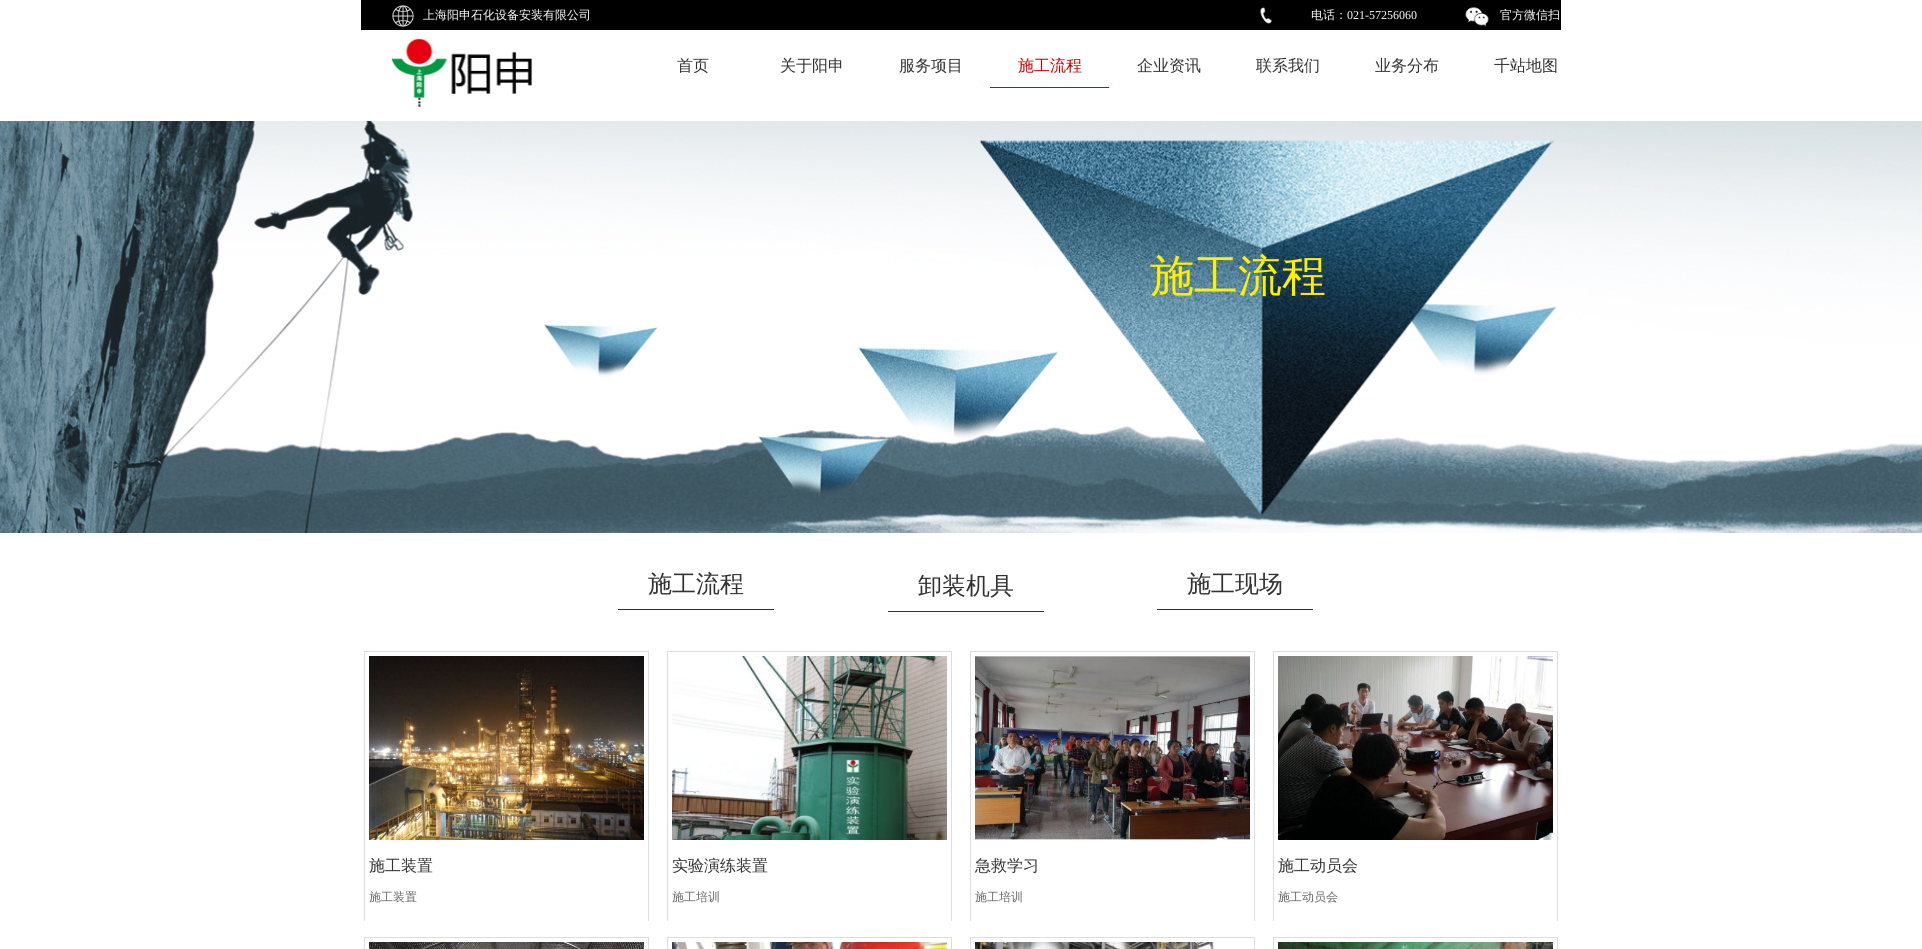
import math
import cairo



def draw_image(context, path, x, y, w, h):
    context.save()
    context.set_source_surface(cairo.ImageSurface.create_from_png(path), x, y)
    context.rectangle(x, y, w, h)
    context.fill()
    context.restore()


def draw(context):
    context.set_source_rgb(1, 1, 1)
    context.paint()
    context.set_source_rgb(0, 0, 0)
    context.rectangle(361, 0, 1200, 30)
    context.fill()
    draw_image(context, "images/1.png", 392, 5, 22, 22)
    draw_image(context, "images/2.png", 1260, 7, 12, 17)
    draw_image(context, "images/3.png", 1465, 7, 24, 19)
    draw_image(context, "images/4.png", 391, 38, 141, 69)
    context.set_source_rgb(204 / 255, 0, 0)
    context.rectangle(990, 87, 119, 1)
    context.fill()
    draw_image(context, "images/5.png", 0, 121, 1922, 412)
    context.set_source_rgb(50 / 255, 50 / 255, 50 / 255)
    context.rectangle(618, 609, 156, 1)
    context.fill()
    context.rectangle(888, 611, 156, 1)
    context.fill()
    context.rectangle(1157, 609, 156, 1)
    context.fill()
    context.save()
    context.rectangle(361, 647, 291, 274)
    context.clip()
    context.rectangle(364.5, 651.5, 284, 273)
    context.set_source_rgb(221 / 255, 221 / 255, 221 / 255)
    context.set_line_width(1)
    context.stroke()
    context.restore()
    draw_image(context, "images/6.png", 369, 656, 275, 184)
    context.save()
    context.rectangle(664, 647, 291, 274)
    context.clip()
    context.rectangle(667.5, 651.5, 284, 273)
    context.set_source_rgb(221 / 255, 221 / 255, 221 / 255)
    context.set_line_width(1)
    context.stroke()
    context.restore()
    draw_image(context, "images/7.png", 672, 656, 275, 184)
    context.save()
    context.rectangle(967, 647, 291, 274)
    context.clip()
    context.rectangle(970.5, 651.5, 284, 273)
    context.set_source_rgb(221 / 255, 221 / 255, 221 / 255)
    context.set_line_width(1)
    context.stroke()
    context.restore()
    draw_image(context, "images/8.png", 975, 656, 275, 184)
    context.save()
    context.rectangle(1270, 647, 291, 274)
    context.clip()
    context.rectangle(1273.5, 651.5, 284, 273)
    context.set_source_rgb(221 / 255, 221 / 255, 221 / 255)
    context.set_line_width(1)
    context.stroke()
    context.restore()
    draw_image(context, "images/9.png", 1278, 656, 275, 184)
    context.rectangle(364.5, 937.5, 284, 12)
    context.set_source_rgb(221 / 255, 221 / 255, 221 / 255)
    context.set_line_width(1)
    context.stroke()
    draw_image(context, "images/10.png", 369, 942, 275, 7)
    context.rectangle(667.5, 937.5, 284, 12)
    context.stroke()
    draw_image(context, "images/11.png", 672, 942, 275, 7)
    context.rectangle(970.5, 937.5, 284, 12)
    context.stroke()
    draw_image(context, "images/12.png", 975, 942, 240, 7)
    context.rectangle(1273.5, 937.5, 284, 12)
    context.stroke()
    draw_image(context, "images/13.png", 1278, 942, 275, 7)
    context.select_font_face("WenQuanYi Zen Hei Medium")
    context.set_font_size(12)
    context.set_source_rgb(1, 1, 1)
    context.move_to(423, 19)
    context.show_text("上海阳申石化设备安装有限公司")
    context.move_to(1311, 19)
    context.show_text("电话：")
    context.select_font_face("Liberation Serif")
    context.move_to(1347, 19)
    context.show_text("021-57256060")
    context.select_font_face("WenQuanYi Zen Hei Medium")
    context.move_to(1500, 19)
    context.show_text("官方微信扫")
    context.set_font_size(16)
    context.set_source_rgb(50 / 255, 50 / 255, 50 / 255)
    context.move_to(677, 71)
    context.show_text("首页")
    context.move_to(780, 71)
    context.show_text("关于阳申")
    context.move_to(899, 71)
    context.show_text("服务项目")
    context.set_source_rgb(204 / 255, 0, 0)
    context.move_to(1018, 71)
    context.show_text("施工流程")
    context.set_source_rgb(50 / 255, 50 / 255, 50 / 255)
    context.move_to(1137, 71)
    context.show_text("企业资讯")
    context.move_to(1256, 71)
    context.show_text("联系我们")
    context.move_to(1375, 71)
    context.show_text("业务分布")
    context.move_to(1494, 71)
    context.show_text("千站地图")
    context.set_font_size(44)
    context.set_source_rgb(254 / 255, 240 / 255, 1 / 255)
    context.move_to(1150, 291)
    context.show_text("施工流程")
    context.set_font_size(24)
    context.set_source_rgb(50 / 255, 50 / 255, 50 / 255)
    context.move_to(648, 592)
    context.show_text("施工流程")
    context.move_to(918, 594)
    context.show_text("卸装机具")
    context.move_to(1187, 592)
    context.show_text("施工现场")
    context.set_font_size(16)
    context.move_to(369, 871)
    context.show_text("施工装置")
    context.set_font_size(12)
    context.set_source_rgb(102 / 255, 102 / 255, 102 / 255)
    context.move_to(369, 901)
    context.show_text("施工装置")
    context.set_font_size(16)
    context.set_source_rgb(50 / 255, 50 / 255, 50 / 255)
    context.move_to(672, 871)
    context.show_text("实验演练装置")
    context.set_font_size(12)
    context.set_source_rgb(102 / 255, 102 / 255, 102 / 255)
    context.move_to(672, 901)
    context.show_text("施工培训")
    context.set_font_size(16)
    context.set_source_rgb(50 / 255, 50 / 255, 50 / 255)
    context.move_to(975, 871)
    context.show_text("急救学习")
    context.set_font_size(12)
    context.set_source_rgb(102 / 255, 102 / 255, 102 / 255)
    context.move_to(975, 901)
    context.show_text("施工培训")
    context.set_font_size(16)
    context.set_source_rgb(50 / 255, 50 / 255, 50 / 255)
    context.move_to(1278, 871)
    context.show_text("施工动员会")
    context.set_font_size(12)
    context.set_source_rgb(102 / 255, 102 / 255, 102 / 255)
    context.move_to(1278, 901)
    context.show_text("施工动员会")


surface = cairo.ImageSurface(cairo.Format.RGB24, 1922, 949)
context = cairo.Context(surface)
options = cairo.FontOptions()
options.set_hint_metrics(cairo.HintMetrics.OFF)
options.set_hint_style(cairo.HintStyle.NONE)
context.set_font_options(options)
context.set_miter_limit(4)
draw(context)
surface.write_to_png("out.png")
